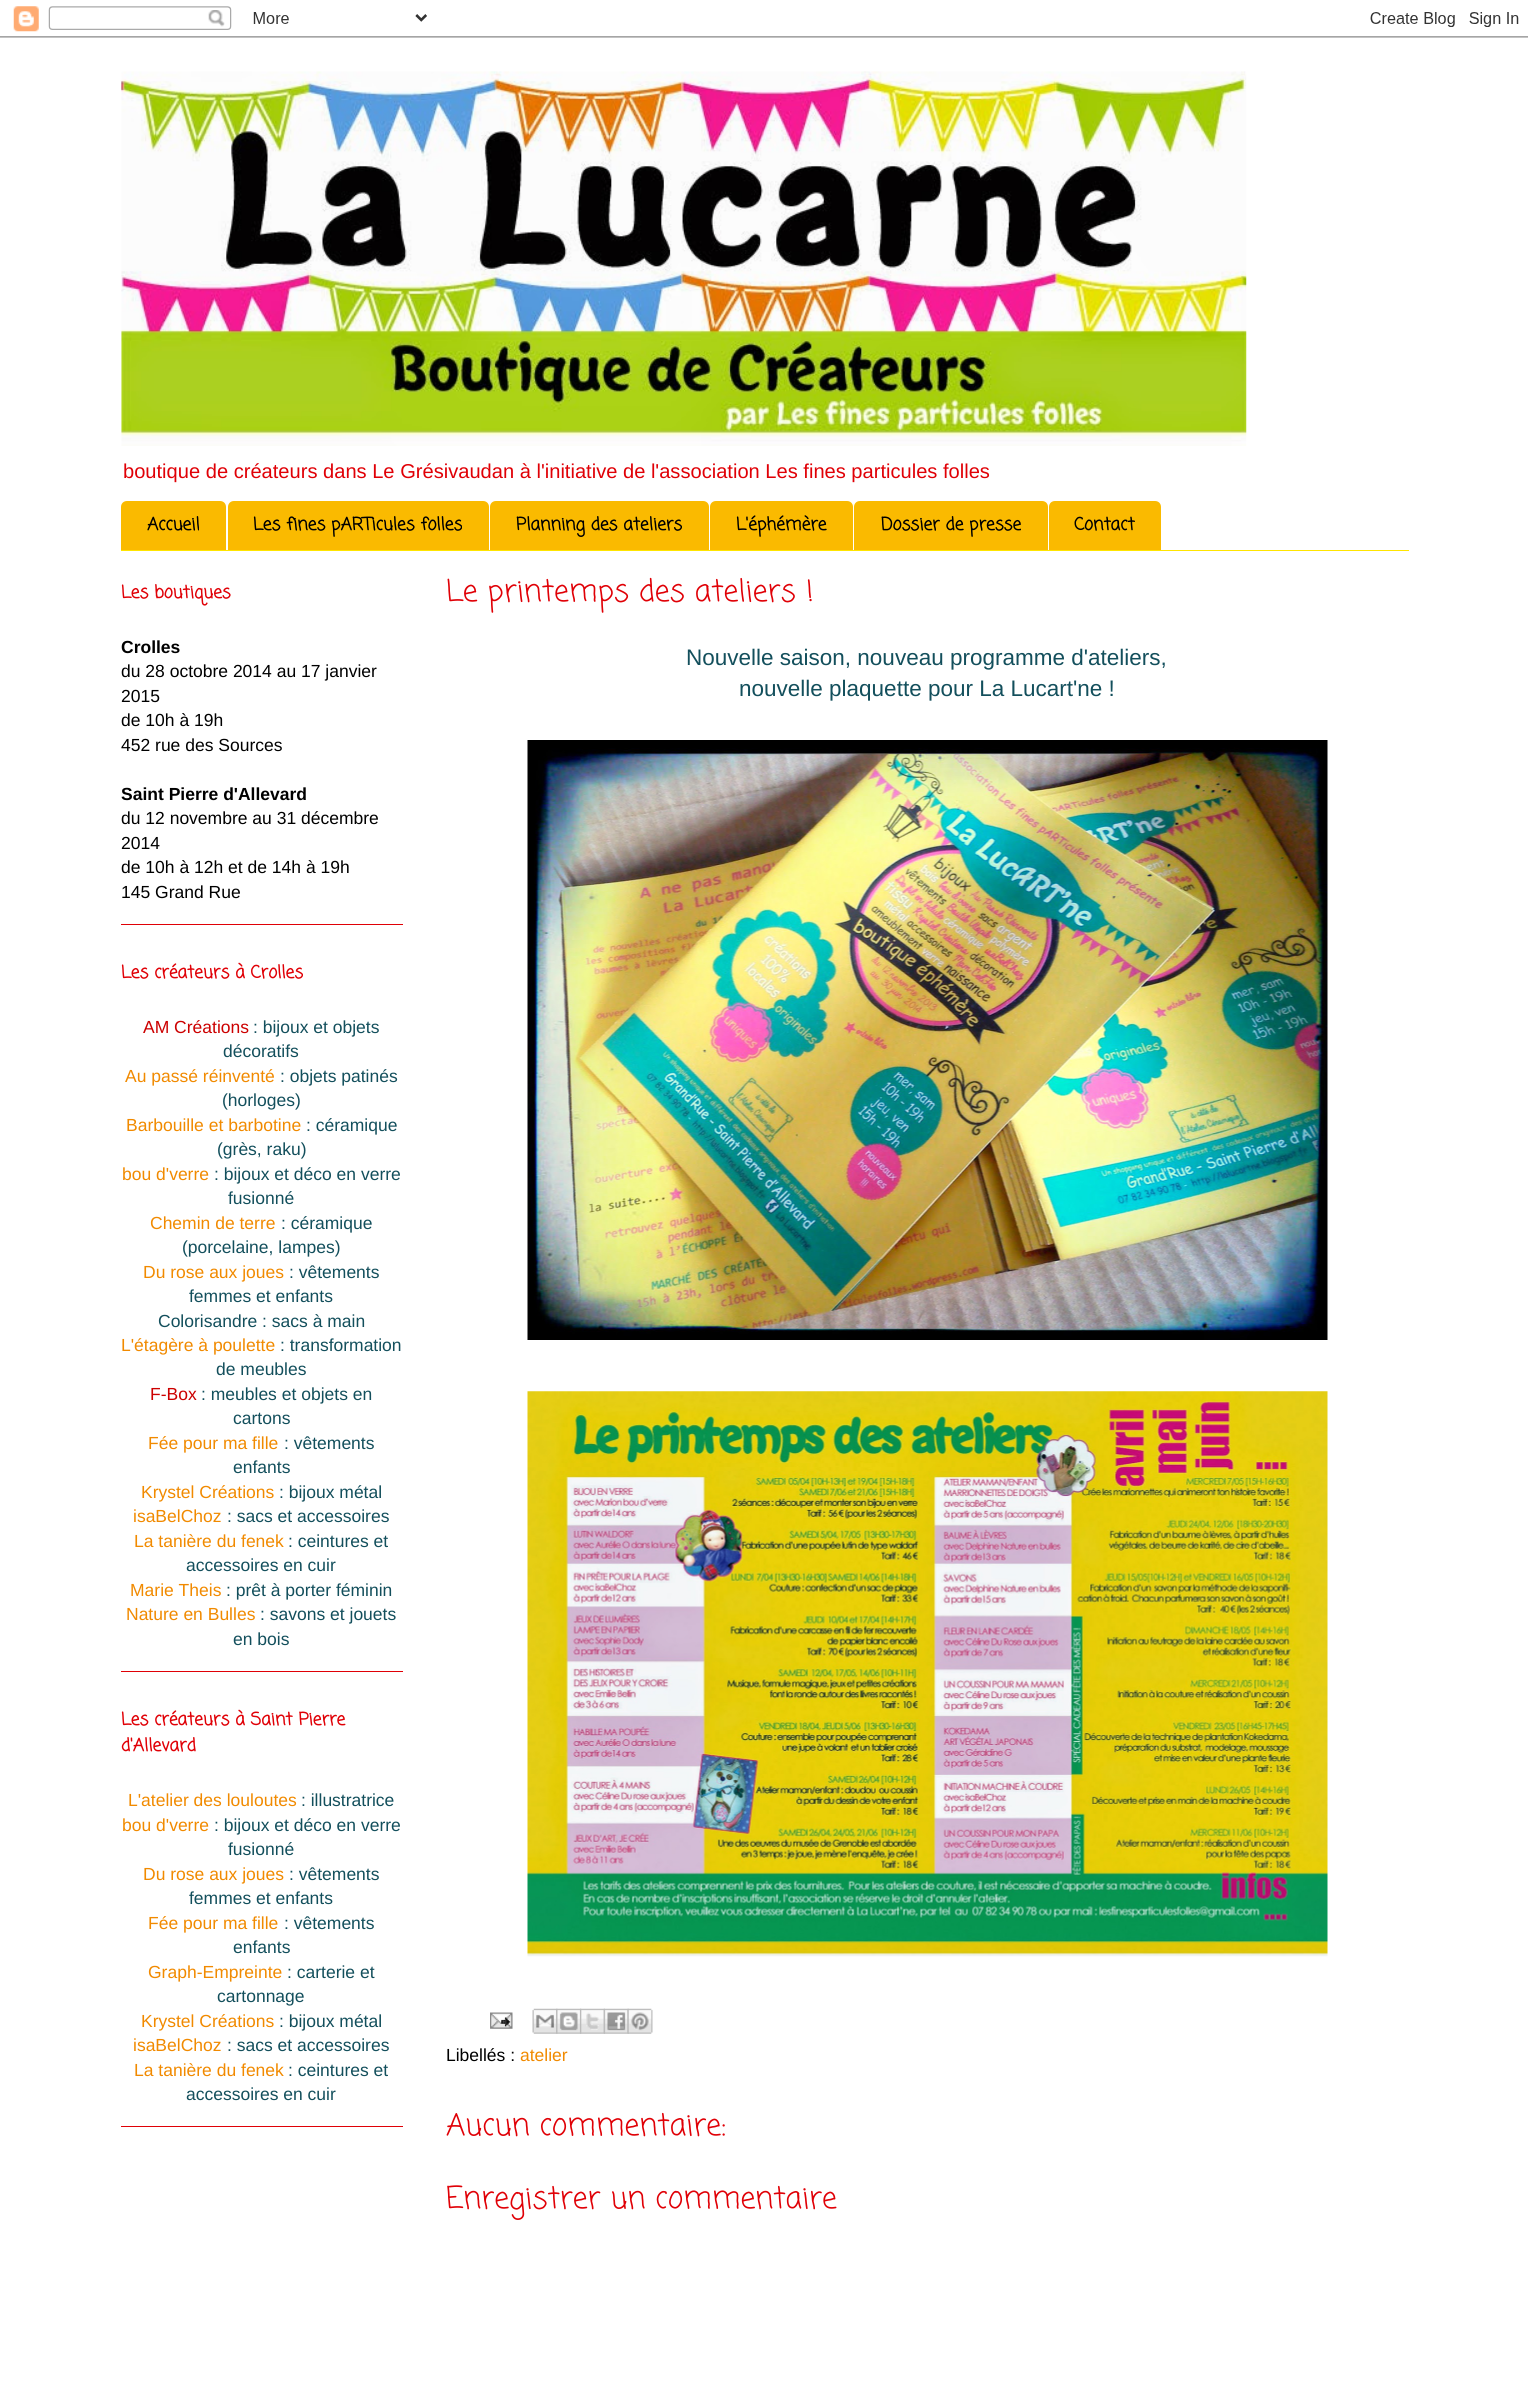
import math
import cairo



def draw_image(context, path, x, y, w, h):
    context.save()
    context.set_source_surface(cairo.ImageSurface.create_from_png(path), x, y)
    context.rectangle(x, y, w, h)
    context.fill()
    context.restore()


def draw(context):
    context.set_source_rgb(1, 1, 1)
    context.paint()
    draw_image(context, "images/1.png", 0, 6, 1528, 32)
    draw_image(context, "images/2.png", 121, 71, 1126, 375)
    context.set_source_rgb(1, 229 / 255, 0)
    context.rectangle(121, 550, 1288, 1)
    context.fill()
    context.set_source_rgb(250 / 255, 186 / 255, 0)
    context.new_path()
    context.move_to(127, 501)
    context.line_to(220, 501)
    context.curve_to(223.5, 501, 226, 503.5, 226, 507)
    context.line_to(226, 550)
    context.line_to(121, 550)
    context.line_to(121, 507)
    context.curve_to(121, 503.5, 123.5, 501, 127, 501)
    context.close_path()
    context.fill()
    context.new_path()
    context.move_to(234, 501)
    context.line_to(483, 501)
    context.curve_to(486.5, 501, 489, 503.5, 489, 507)
    context.line_to(489, 550)
    context.line_to(228, 550)
    context.line_to(228, 507)
    context.curve_to(228, 503.5, 230.5, 501, 234, 501)
    context.close_path()
    context.fill()
    context.new_path()
    context.move_to(496, 501)
    context.line_to(703, 501)
    context.curve_to(706.5, 501, 709, 503.5, 709, 507)
    context.line_to(709, 550)
    context.line_to(490, 550)
    context.line_to(490, 507)
    context.curve_to(490, 503.5, 492.5, 501, 496, 501)
    context.close_path()
    context.fill()
    context.new_path()
    context.move_to(716, 501)
    context.line_to(847, 501)
    context.curve_to(850.5, 501, 853, 503.5, 853, 507)
    context.line_to(853, 550)
    context.line_to(710, 550)
    context.line_to(710, 507)
    context.curve_to(710, 503.5, 712.5, 501, 716, 501)
    context.close_path()
    context.fill()
    context.new_path()
    context.move_to(860, 501)
    context.line_to(1042, 501)
    context.curve_to(1045.5, 501, 1048, 503.5, 1048, 507)
    context.line_to(1048, 550)
    context.line_to(854, 550)
    context.line_to(854, 507)
    context.curve_to(854, 503.5, 856.5, 501, 860, 501)
    context.close_path()
    context.fill()
    context.new_path()
    context.move_to(1055, 501)
    context.line_to(1155, 501)
    context.curve_to(1158.5, 501, 1161, 503.5, 1161, 507)
    context.line_to(1161, 550)
    context.line_to(1049, 550)
    context.line_to(1049, 507)
    context.curve_to(1049, 503.5, 1051.5, 501, 1055, 501)
    context.close_path()
    context.fill()
    context.set_source_rgb(224 / 255, 0, 6 / 255)
    context.rectangle(121, 924, 282, 1)
    context.fill()
    context.rectangle(121, 1671, 282, 1)
    context.fill()
    context.rectangle(121, 2126, 282, 1)
    context.fill()
    draw_image(context, "images/3.png", 527, 740, 801, 600)
    draw_image(context, "images/4.png", 527, 1391, 801, 566)
    draw_image(context, "images/5.png", 490, 2012, 23, 17)
    draw_image(context, "images/6.png", 532, 2008, 26, 26)
    draw_image(context, "images/7.png", 556, 2008, 26, 26)
    draw_image(context, "images/8.png", 580, 2008, 25, 26)
    draw_image(context, "images/9.png", 603, 2008, 26, 26)
    draw_image(context, "images/10.png", 627, 2008, 26, 26)
    context.select_font_face("Liberation Sans")
    context.set_font_size(20.1)
    context.move_to(123, 478)
    context.show_text("boutique de créateurs dans Le Grésivaudan à l'initiative de l'association Les fines particules folles")
    context.select_font_face("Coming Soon", cairo.FontSlant.NORMAL, cairo.FontWeight.BOLD)
    context.set_font_size(17.5)
    context.set_source_rgb(0, 0, 0)
    context.move_to(147, 530)
    context.show_text("Accueil")
    context.move_to(253, 530)
    context.show_text("Les fines pARTicules folles")
    context.move_to(516, 530)
    context.show_text("Planning des ateliers")
    context.move_to(736, 530)
    context.show_text("L'éphémère")
    context.move_to(881, 530)
    context.show_text("Dossier de presse")
    context.move_to(1074, 530)
    context.show_text("Contact")
    context.set_source_rgb(224 / 255, 0, 6 / 255)
    context.move_to(121, 598)
    context.show_text("Les boutiques")
    context.select_font_face("Liberation Sans", cairo.FontSlant.NORMAL, cairo.FontWeight.BOLD)
    context.set_source_rgb(0, 0, 0)
    context.move_to(121, 653)
    context.show_text("Crolles")
    context.select_font_face("Liberation Sans")
    context.move_to(121, 677)
    context.show_text("du 28 octobre 2014 au 17 janvier")
    context.move_to(121, 702)
    context.show_text("2015")
    context.move_to(121, 726)
    context.show_text("de 10h à 19h")
    context.move_to(121, 751)
    context.show_text("452 rue des Sources")
    context.select_font_face("Liberation Sans", cairo.FontSlant.NORMAL, cairo.FontWeight.BOLD)
    context.move_to(121, 800)
    context.show_text("Saint Pierre d'Allevard")
    context.select_font_face("Liberation Sans")
    context.move_to(121, 824)
    context.show_text("du 12 novembre au 31 décembre")
    context.move_to(121, 849)
    context.show_text("2014")
    context.move_to(121, 873)
    context.show_text("de 10h à 12h et de 14h à 19h")
    context.move_to(121, 898)
    context.show_text("145 Grand Rue")
    context.select_font_face("Coming Soon", cairo.FontSlant.NORMAL, cairo.FontWeight.BOLD)
    context.set_source_rgb(224 / 255, 0, 6 / 255)
    context.move_to(121, 978)
    context.show_text("Les créateurs à Crolles")
    context.select_font_face("Liberation Sans")
    context.set_source_rgb(204 / 255, 0, 0)
    context.move_to(143, 1033)
    context.show_text("AM Créations")
    context.set_source_rgb(19 / 255, 79 / 255, 92 / 255)
    context.move_to(253, 1033)
    context.show_text(": bijoux et objets")
    context.move_to(223, 1057)
    context.show_text("décoratifs")
    context.set_source_rgb(241 / 255, 138 / 255, 0)
    context.move_to(125, 1082)
    context.show_text("Au passé réinventé")
    context.set_source_rgb(19 / 255, 79 / 255, 92 / 255)
    context.move_to(280, 1082)
    context.show_text(": objets patinés")
    context.move_to(222, 1106)
    context.show_text("(horloges)")
    context.set_source_rgb(241 / 255, 138 / 255, 0)
    context.move_to(126, 1131)
    context.show_text("Barbouille et barbotine")
    context.set_source_rgb(19 / 255, 79 / 255, 92 / 255)
    context.move_to(306, 1131)
    context.show_text(": céramique")
    context.move_to(217, 1155)
    context.show_text("(grès, raku)")
    context.set_source_rgb(241 / 255, 138 / 255, 0)
    context.move_to(122, 1180)
    context.show_text("bou d'verre")
    context.set_source_rgb(19 / 255, 79 / 255, 92 / 255)
    context.move_to(214, 1180)
    context.show_text(": bijoux et déco en verre")
    context.move_to(228, 1204)
    context.show_text("fusionné")
    context.set_source_rgb(241 / 255, 138 / 255, 0)
    context.move_to(150, 1229)
    context.show_text("Chemin de terre")
    context.set_source_rgb(19 / 255, 79 / 255, 92 / 255)
    context.move_to(281, 1229)
    context.show_text(": céramique")
    context.move_to(182, 1253)
    context.show_text("(porcelaine, lampes)")
    context.set_source_rgb(241 / 255, 138 / 255, 0)
    context.move_to(143, 1278)
    context.show_text("Du rose aux joues")
    context.set_source_rgb(19 / 255, 79 / 255, 92 / 255)
    context.move_to(289, 1278)
    context.show_text(": vêtements")
    context.move_to(189, 1302)
    context.show_text("femmes et enfants")
    context.move_to(158, 1327)
    context.show_text("Colorisandre : sacs à main")
    context.set_source_rgb(241 / 255, 138 / 255, 0)
    context.move_to(121, 1351)
    context.show_text("L'étagère à poulette")
    context.set_source_rgb(19 / 255, 79 / 255, 92 / 255)
    context.move_to(280, 1351)
    context.show_text(": transformation")
    context.move_to(216, 1375)
    context.show_text("de meubles")
    context.set_source_rgb(204 / 255, 0, 0)
    context.move_to(150, 1400)
    context.show_text("F-Box")
    context.set_source_rgb(19 / 255, 79 / 255, 92 / 255)
    context.move_to(201, 1400)
    context.show_text(": meubles et objets en")
    context.move_to(233, 1424)
    context.show_text("cartons")
    context.set_source_rgb(241 / 255, 138 / 255, 0)
    context.move_to(148, 1449)
    context.show_text("Fée pour ma fille")
    context.set_source_rgb(19 / 255, 79 / 255, 92 / 255)
    context.move_to(284, 1449)
    context.show_text(": vêtements")
    context.move_to(233, 1473)
    context.show_text("enfants")
    context.set_source_rgb(241 / 255, 138 / 255, 0)
    context.move_to(141, 1498)
    context.show_text("Krystel Créations")
    context.set_source_rgb(19 / 255, 79 / 255, 92 / 255)
    context.move_to(279, 1498)
    context.show_text(": bijoux métal")
    context.set_source_rgb(241 / 255, 138 / 255, 0)
    context.move_to(133, 1522)
    context.show_text("isaBelChoz")
    context.set_source_rgb(19 / 255, 79 / 255, 92 / 255)
    context.move_to(227, 1522)
    context.show_text(": sacs et accessoires")
    context.set_source_rgb(241 / 255, 138 / 255, 0)
    context.move_to(134, 1547)
    context.show_text("La tanière du fenek")
    context.set_source_rgb(19 / 255, 79 / 255, 92 / 255)
    context.move_to(288, 1547)
    context.show_text(": ceintures et")
    context.move_to(186, 1571)
    context.show_text("accessoires en cuir")
    context.set_source_rgb(241 / 255, 138 / 255, 0)
    context.move_to(130, 1596)
    context.show_text("Marie Theis")
    context.set_source_rgb(19 / 255, 79 / 255, 92 / 255)
    context.move_to(226, 1596)
    context.show_text(": prêt à porter féminin")
    context.set_source_rgb(241 / 255, 138 / 255, 0)
    context.move_to(126, 1620)
    context.show_text("Nature en Bulles")
    context.set_source_rgb(19 / 255, 79 / 255, 92 / 255)
    context.move_to(260, 1620)
    context.show_text(": savons et jouets")
    context.move_to(233, 1645)
    context.show_text("en bois")
    context.select_font_face("Coming Soon", cairo.FontSlant.NORMAL, cairo.FontWeight.BOLD)
    context.set_source_rgb(224 / 255, 0, 6 / 255)
    context.move_to(121, 1725)
    context.show_text("Les créateurs à Saint Pierre")
    context.move_to(121, 1751)
    context.show_text("d'Allevard")
    context.select_font_face("Liberation Sans")
    context.set_source_rgb(241 / 255, 138 / 255, 0)
    context.move_to(128, 1806)
    context.show_text("L'atelier des louloutes")
    context.set_source_rgb(19 / 255, 79 / 255, 92 / 255)
    context.move_to(301, 1806)
    context.show_text(": illustratrice")
    context.set_source_rgb(241 / 255, 138 / 255, 0)
    context.move_to(122, 1831)
    context.show_text("bou d'verre")
    context.set_source_rgb(19 / 255, 79 / 255, 92 / 255)
    context.move_to(214, 1831)
    context.show_text(": bijoux et déco en verre")
    context.move_to(228, 1855)
    context.show_text("fusionné")
    context.set_source_rgb(241 / 255, 138 / 255, 0)
    context.move_to(143, 1880)
    context.show_text("Du rose aux joues")
    context.set_source_rgb(19 / 255, 79 / 255, 92 / 255)
    context.move_to(289, 1880)
    context.show_text(": vêtements")
    context.move_to(189, 1904)
    context.show_text("femmes et enfants")
    context.set_source_rgb(241 / 255, 138 / 255, 0)
    context.move_to(148, 1929)
    context.show_text("Fée pour ma fille")
    context.set_source_rgb(19 / 255, 79 / 255, 92 / 255)
    context.move_to(284, 1929)
    context.show_text(": vêtements")
    context.move_to(233, 1953)
    context.show_text("enfants")
    context.set_source_rgb(241 / 255, 138 / 255, 0)
    context.move_to(148, 1978)
    context.show_text("Graph-Empreinte")
    context.set_source_rgb(19 / 255, 79 / 255, 92 / 255)
    context.move_to(287, 1978)
    context.show_text(": carterie et")
    context.move_to(217, 2002)
    context.show_text("cartonnage")
    context.set_source_rgb(241 / 255, 138 / 255, 0)
    context.move_to(141, 2027)
    context.show_text("Krystel Créations")
    context.set_source_rgb(19 / 255, 79 / 255, 92 / 255)
    context.move_to(279, 2027)
    context.show_text(": bijoux métal")
    context.set_source_rgb(241 / 255, 138 / 255, 0)
    context.move_to(133, 2051)
    context.show_text("isaBelChoz")
    context.set_source_rgb(19 / 255, 79 / 255, 92 / 255)
    context.move_to(227, 2051)
    context.show_text(": sacs et accessoires")
    context.set_source_rgb(241 / 255, 138 / 255, 0)
    context.move_to(134, 2076)
    context.show_text("La tanière du fenek")
    context.set_source_rgb(19 / 255, 79 / 255, 92 / 255)
    context.move_to(288, 2076)
    context.show_text(": ceintures et")
    context.move_to(186, 2100)
    context.show_text("accessoires en cuir")
    context.select_font_face("Coming Soon")
    context.set_font_size(30)
    context.set_source_rgb(224 / 255, 0, 6 / 255)
    context.move_to(446, 601)
    context.show_text("Le printemps des ateliers !")
    context.select_font_face("Liberation Sans")
    context.set_font_size(22.5)
    context.set_source_rgb(19 / 255, 79 / 255, 92 / 255)
    context.move_to(686, 665)
    context.show_text("Nouvelle saison, nouveau programme d'ateliers,")
    context.move_to(739, 696)
    context.show_text("nouvelle plaquette pour La Lucart'ne !")
    context.set_font_size(17.5)
    context.set_source_rgb(0, 0, 0)
    context.move_to(446, 2061)
    context.show_text("Libellés :")
    context.set_source_rgb(241 / 255, 138 / 255, 0)
    context.move_to(520, 2061)
    context.show_text("atelier")
    context.select_font_face("Coming Soon")
    context.set_font_size(30)
    context.set_source_rgb(224 / 255, 0, 6 / 255)
    context.move_to(446, 2135)
    context.show_text("Aucun commentaire:")
    context.move_to(446, 2208)
    context.show_text("Enregistrer un commentaire")


surface = cairo.ImageSurface(cairo.Format.RGB24, 1528, 2392)
context = cairo.Context(surface)
options = cairo.FontOptions()
options.set_hint_metrics(cairo.HintMetrics.OFF)
options.set_hint_style(cairo.HintStyle.NONE)
context.set_font_options(options)
context.set_miter_limit(4)
draw(context)
surface.write_to_png("out.png")
